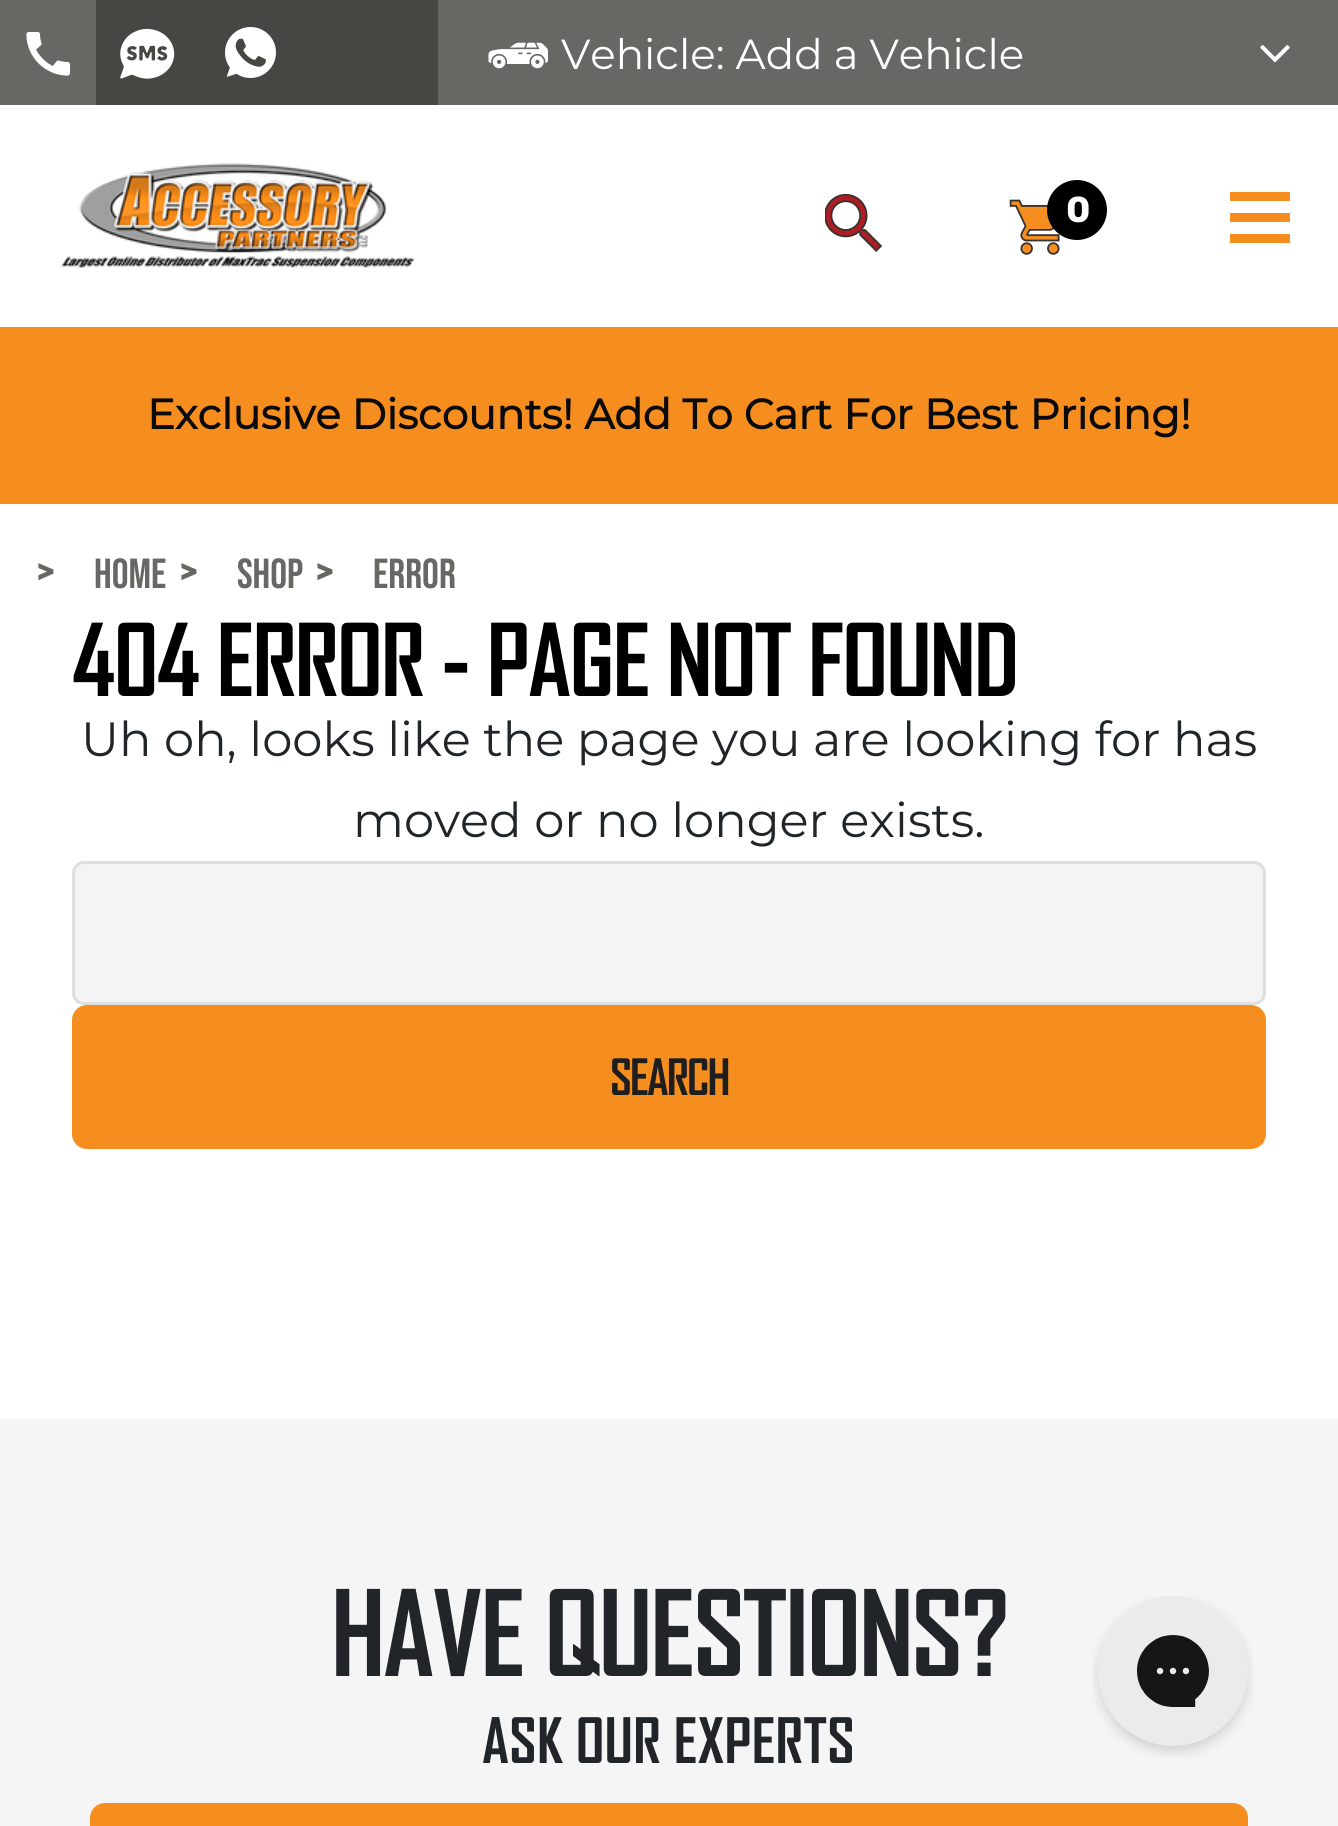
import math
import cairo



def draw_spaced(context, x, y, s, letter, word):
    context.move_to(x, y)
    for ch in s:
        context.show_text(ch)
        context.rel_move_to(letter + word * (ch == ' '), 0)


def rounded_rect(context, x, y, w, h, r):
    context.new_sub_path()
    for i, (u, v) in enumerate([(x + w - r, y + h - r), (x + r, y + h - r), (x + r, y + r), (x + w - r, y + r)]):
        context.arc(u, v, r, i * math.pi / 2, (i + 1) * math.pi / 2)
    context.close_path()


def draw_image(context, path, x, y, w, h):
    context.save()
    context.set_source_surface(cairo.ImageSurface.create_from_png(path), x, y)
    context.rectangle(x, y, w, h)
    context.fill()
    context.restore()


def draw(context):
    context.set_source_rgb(1, 1, 1)
    context.paint()
    context.set_source_rgb(70 / 255, 70 / 255, 66 / 255)
    context.rectangle(96, 0, 342, 105)
    context.fill()
    context.set_source_rgb(103 / 255, 103 / 255, 99 / 255)
    context.rectangle(0, 0, 96, 105)
    context.fill()
    draw_image(context, "images/1.png", 26, 32, 44, 44)
    draw_image(context, "images/2.png", 120, 28, 55, 51)
    draw_image(context, "images/3.png", 225, 27, 51, 51)
    context.rectangle(438, 0, 900, 105)
    context.fill()
    draw_image(context, "images/4.png", 488, 42, 60, 27)
    draw_image(context, "images/5.png", 1260, 45, 30, 18)
    draw_image(context, "images/6.png", 61, 163, 354, 106)
    draw_image(context, "images/7.png", 825, 193, 57, 59)
    draw_image(context, "images/8.png", 1009, 199, 51, 56)
    context.set_source_rgb(0, 0, 0)
    context.arc(1077, 210, 30, 0, 2 * math.pi)
    context.fill()
    context.set_source_rgb(246 / 255, 142 / 255, 31 / 255)
    context.rectangle(1230, 213, 60, 9)
    context.fill()
    context.rectangle(1230, 192, 60, 9)
    context.fill()
    context.rectangle(1230, 234, 60, 9)
    context.fill()
    context.rectangle(0, 327, 1338, 177)
    context.fill()
    context.set_source_rgb(244 / 255, 244 / 255, 244 / 255)
    rounded_rect(context, 73.5, 862.5, 1191, 141, 10.5)
    context.fill_preserve()
    context.set_source_rgb(222 / 255, 222 / 255, 222 / 255)
    context.set_line_width(3)
    context.stroke()
    context.set_source_rgb(246 / 255, 142 / 255, 31 / 255)
    rounded_rect(context, 75, 1008, 1188, 138, 12)
    context.fill_preserve()
    context.set_line_width(6)
    context.stroke()
    context.set_source_rgb(245 / 255, 245 / 255, 245 / 255)
    context.rectangle(0, 1419, 1338, 407)
    context.fill()
    context.set_source_rgb(246 / 255, 142 / 255, 31 / 255)
    rounded_rect(context, 93, 1806, 1152, 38, 12)
    context.fill_preserve()
    context.stroke()
    draw_image(context, "images/9.png", 1092, 1596, 162, 162)
    context.select_font_face("Montserrat Thin")
    context.set_font_size(42)
    context.set_source_rgb(1, 1, 1)
    context.move_to(561, 69)
    context.show_text("Vehicle: Add a Vehicle")
    context.select_font_face("Rubik", cairo.FontSlant.NORMAL, cairo.FontWeight.BOLD)
    context.set_font_size(36)
    draw_spaced(context, 1066, 222, "0", -1, 0)
    context.select_font_face("Montserrat", cairo.FontSlant.NORMAL, cairo.FontWeight.BOLD)
    context.set_font_size(42)
    context.set_source_rgb(10 / 255, 10 / 255, 10 / 255)
    context.move_to(147, 429)
    context.show_text("Exclusive Discounts! Add To Cart For Best Pricing!")
    context.select_font_face("Bebas Neue", cairo.FontSlant.NORMAL, cairo.FontWeight.BOLD)
    context.set_font_size(45)
    context.set_source_rgb(103 / 255, 103 / 255, 99 / 255)
    context.move_to(36, 588)
    context.show_text(">")
    context.select_font_face("Bebas Neue")
    context.set_font_size(42)
    context.move_to(94, 588)
    context.show_text("Home")
    context.select_font_face("Bebas Neue", cairo.FontSlant.NORMAL, cairo.FontWeight.BOLD)
    context.set_font_size(45)
    context.move_to(179, 588)
    context.show_text(">")
    context.select_font_face("Bebas Neue")
    context.set_font_size(42)
    context.move_to(237, 588)
    context.show_text("Shop")
    context.select_font_face("Bebas Neue", cairo.FontSlant.NORMAL, cairo.FontWeight.BOLD)
    context.set_font_size(45)
    context.move_to(315, 588)
    context.show_text(">")
    context.select_font_face("Bebas Neue")
    context.set_font_size(42)
    context.move_to(373, 588)
    context.show_text("Error")
    context.select_font_face("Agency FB", cairo.FontSlant.NORMAL, cairo.FontWeight.BOLD)
    context.set_font_size(96)
    context.set_source_rgb(0, 0, 0)
    draw_spaced(context, 72, 696, "404 ERROR - PAGE NOT FOUND", -1.9, 0)
    context.select_font_face("Montserrat Thin")
    context.set_font_size(48)
    context.set_source_rgb(33 / 255, 37 / 255, 41 / 255)
    context.move_to(81, 756)
    context.show_text("Uh oh, looks like the page you are looking for has")
    context.move_to(353, 837)
    context.show_text("moved or no longer exists.")
    context.select_font_face("Agency FB", cairo.FontSlant.NORMAL, cairo.FontWeight.BOLD)
    context.set_source_rgb(30 / 255, 30 / 255, 30 / 255)
    draw_spaced(context, 610, 1095, "SEARCH", -1.9, 0)
    context.set_font_size(114)
    context.set_source_rgb(33 / 255, 37 / 255, 41 / 255)
    draw_spaced(context, 331, 1676, "HAVE QUESTIONS?", -2.25, 0)
    context.set_font_size(60)
    draw_spaced(context, 482, 1763, "ASK OUR EXPERTS", 0.25, 0)


surface = cairo.ImageSurface(cairo.Format.RGB24, 1338, 1826)
context = cairo.Context(surface)
options = cairo.FontOptions()
options.set_hint_metrics(cairo.HintMetrics.OFF)
options.set_hint_style(cairo.HintStyle.NONE)
context.set_font_options(options)
context.set_miter_limit(4)
draw(context)
surface.write_to_png("out.png")
